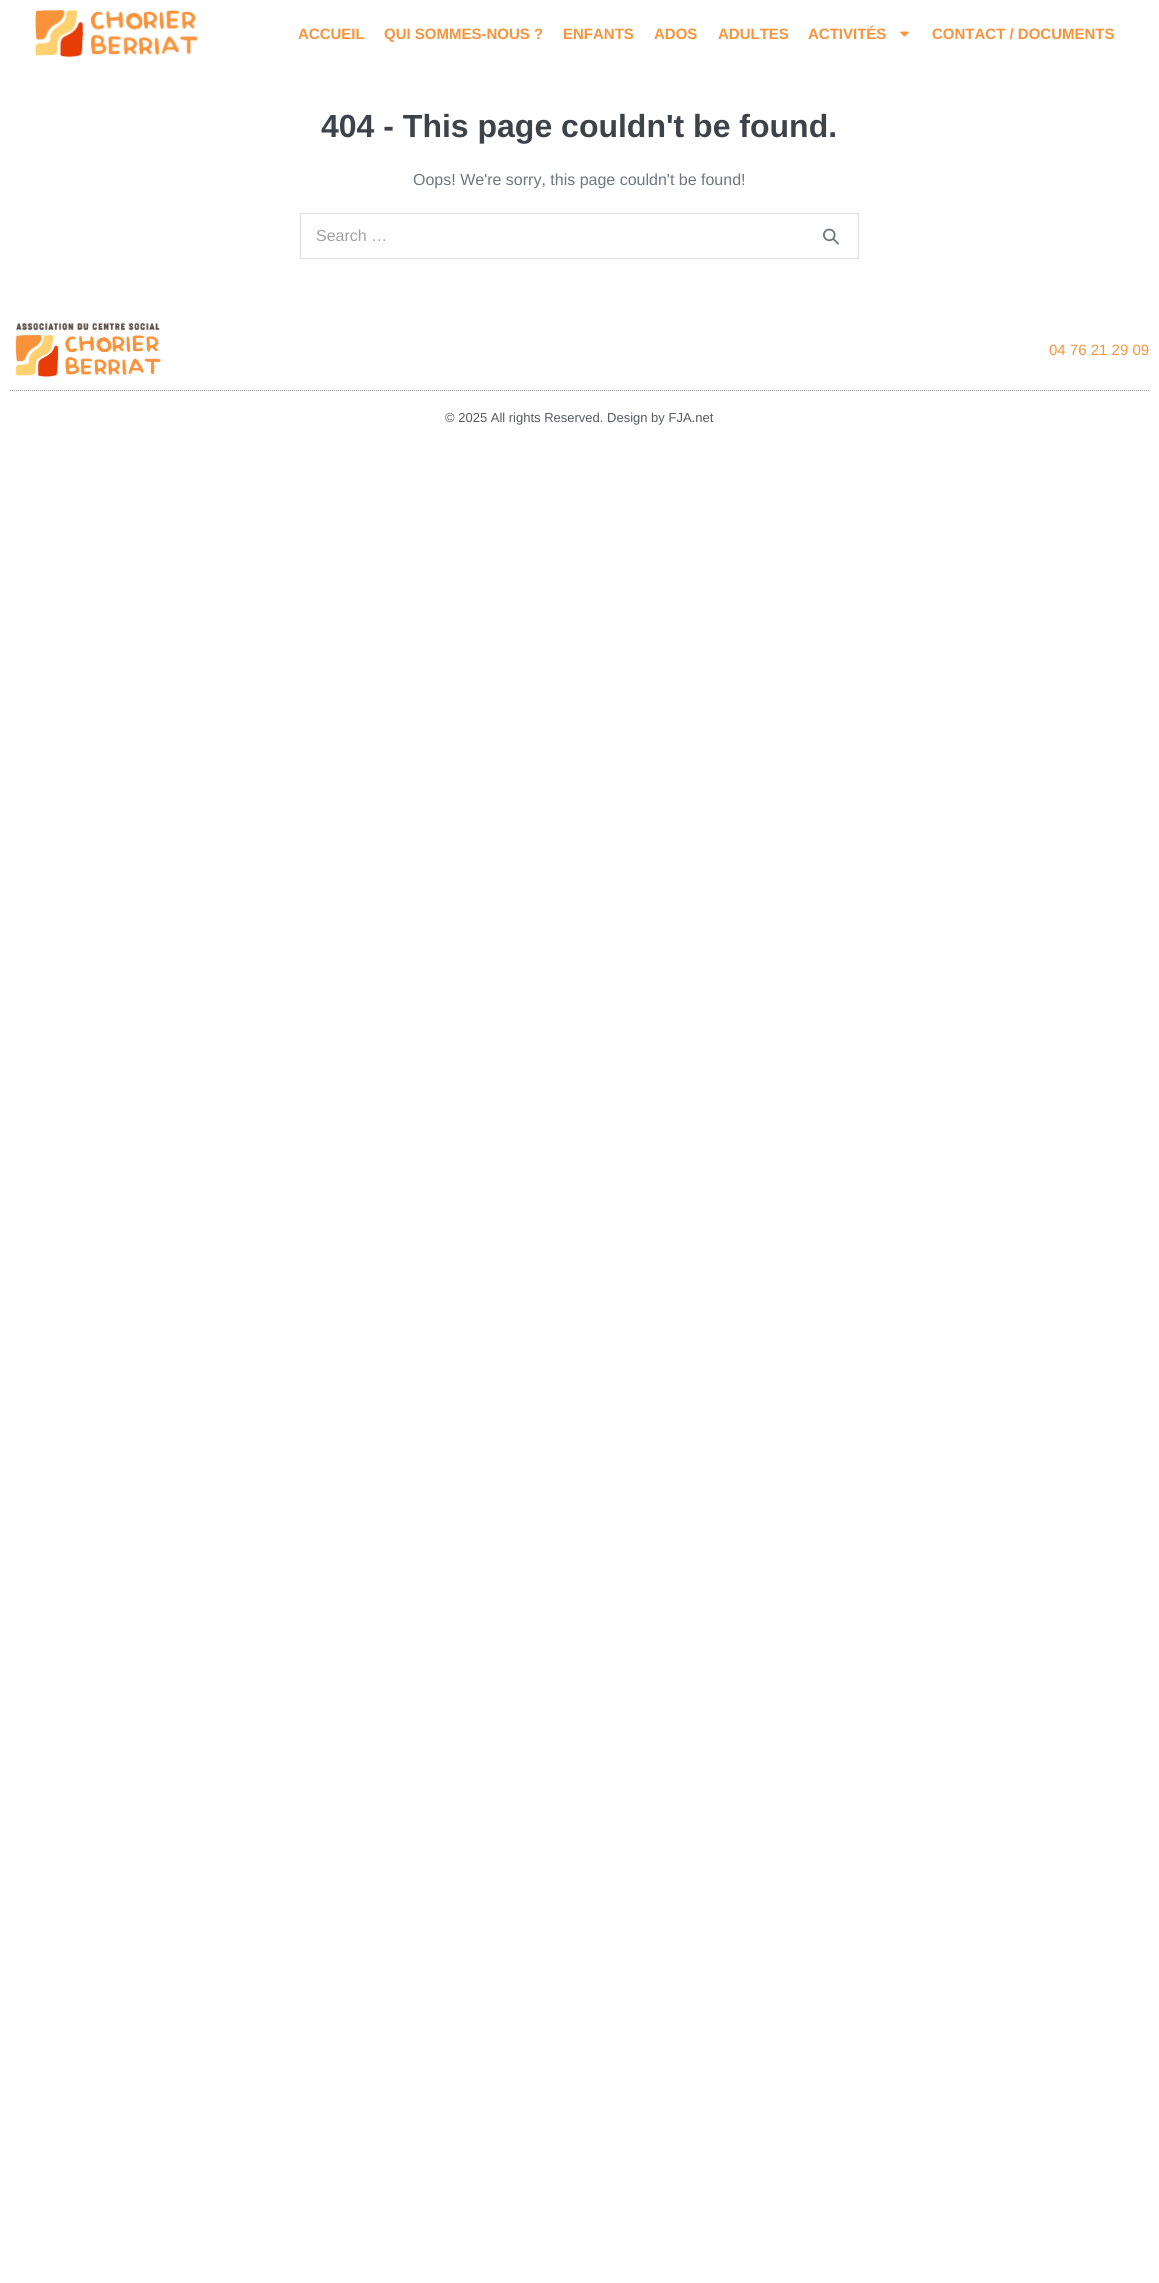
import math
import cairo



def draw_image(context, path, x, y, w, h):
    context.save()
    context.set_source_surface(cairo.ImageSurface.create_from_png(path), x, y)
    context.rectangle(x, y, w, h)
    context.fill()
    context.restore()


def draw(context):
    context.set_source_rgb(1, 1, 1)
    context.paint()
    draw_image(context, "images/1.png", 35, 10, 163, 47)
    draw_image(context, "images/2.png", 900, 31, 9, 6)
    context.rectangle(300.5, 213.5, 558, 45)
    context.set_source_rgb(222 / 255, 222 / 255, 229 / 255)
    context.set_line_width(1)
    context.stroke()
    draw_image(context, "images/3.png", 823, 228, 16, 17)
    context.new_path()
    context.move_to(10, 390.5)
    context.line_to(1150, 390.5)
    context.set_source_rgb(155 / 255, 155 / 255, 155 / 255)
    context.set_dash([1, 1])
    context.stroke()
    draw_image(context, "images/4.png", 15, 322, 146, 55)
    context.select_font_face("Liberation Sans", cairo.FontSlant.NORMAL, cairo.FontWeight.BOLD)
    context.set_font_size(15)
    context.set_source_rgb(248 / 255, 147 / 255, 59 / 255)
    context.move_to(298, 39)
    context.show_text("ACCUEIL")
    context.move_to(384, 39)
    context.show_text("QUI SOMMES-NOUS ?")
    context.move_to(563, 39)
    context.show_text("ENFANTS")
    context.move_to(654, 39)
    context.show_text("ADOS")
    context.move_to(718, 39)
    context.show_text("ADULTES")
    context.move_to(808, 39)
    context.show_text("ACTIVITÉS")
    context.move_to(932, 39)
    context.show_text("CONTACT / DOCUMENTS")
    context.set_font_size(32)
    context.set_source_rgb(62 / 255, 67 / 255, 73 / 255)
    context.move_to(321, 137)
    context.show_text("404 - This page couldn't be found.")
    context.select_font_face("Liberation Sans")
    context.set_font_size(16)
    context.set_source_rgb(109 / 255, 118 / 255, 128 / 255)
    context.move_to(413, 185)
    context.show_text("Oops! We're sorry, this page couldn't be found!")
    context.set_source_rgb(159 / 255, 161 / 255, 164 / 255)
    context.move_to(316, 241)
    context.show_text("Search …")
    context.set_font_size(15)
    context.set_source_rgb(248 / 255, 147 / 255, 59 / 255)
    context.move_to(1049, 355)
    context.show_text("04 76 21 29 09")
    context.set_font_size(13)
    context.set_source_rgb(84 / 255, 89 / 255, 95 / 255)
    context.move_to(445, 422)
    context.show_text("© 2025 All rights Reserved. Design by FJA.net")


surface = cairo.ImageSurface(cairo.Format.RGB24, 1159, 2283)
context = cairo.Context(surface)
options = cairo.FontOptions()
options.set_hint_metrics(cairo.HintMetrics.OFF)
options.set_hint_style(cairo.HintStyle.NONE)
context.set_font_options(options)
context.set_miter_limit(4)
draw(context)
surface.write_to_png("out.png")
